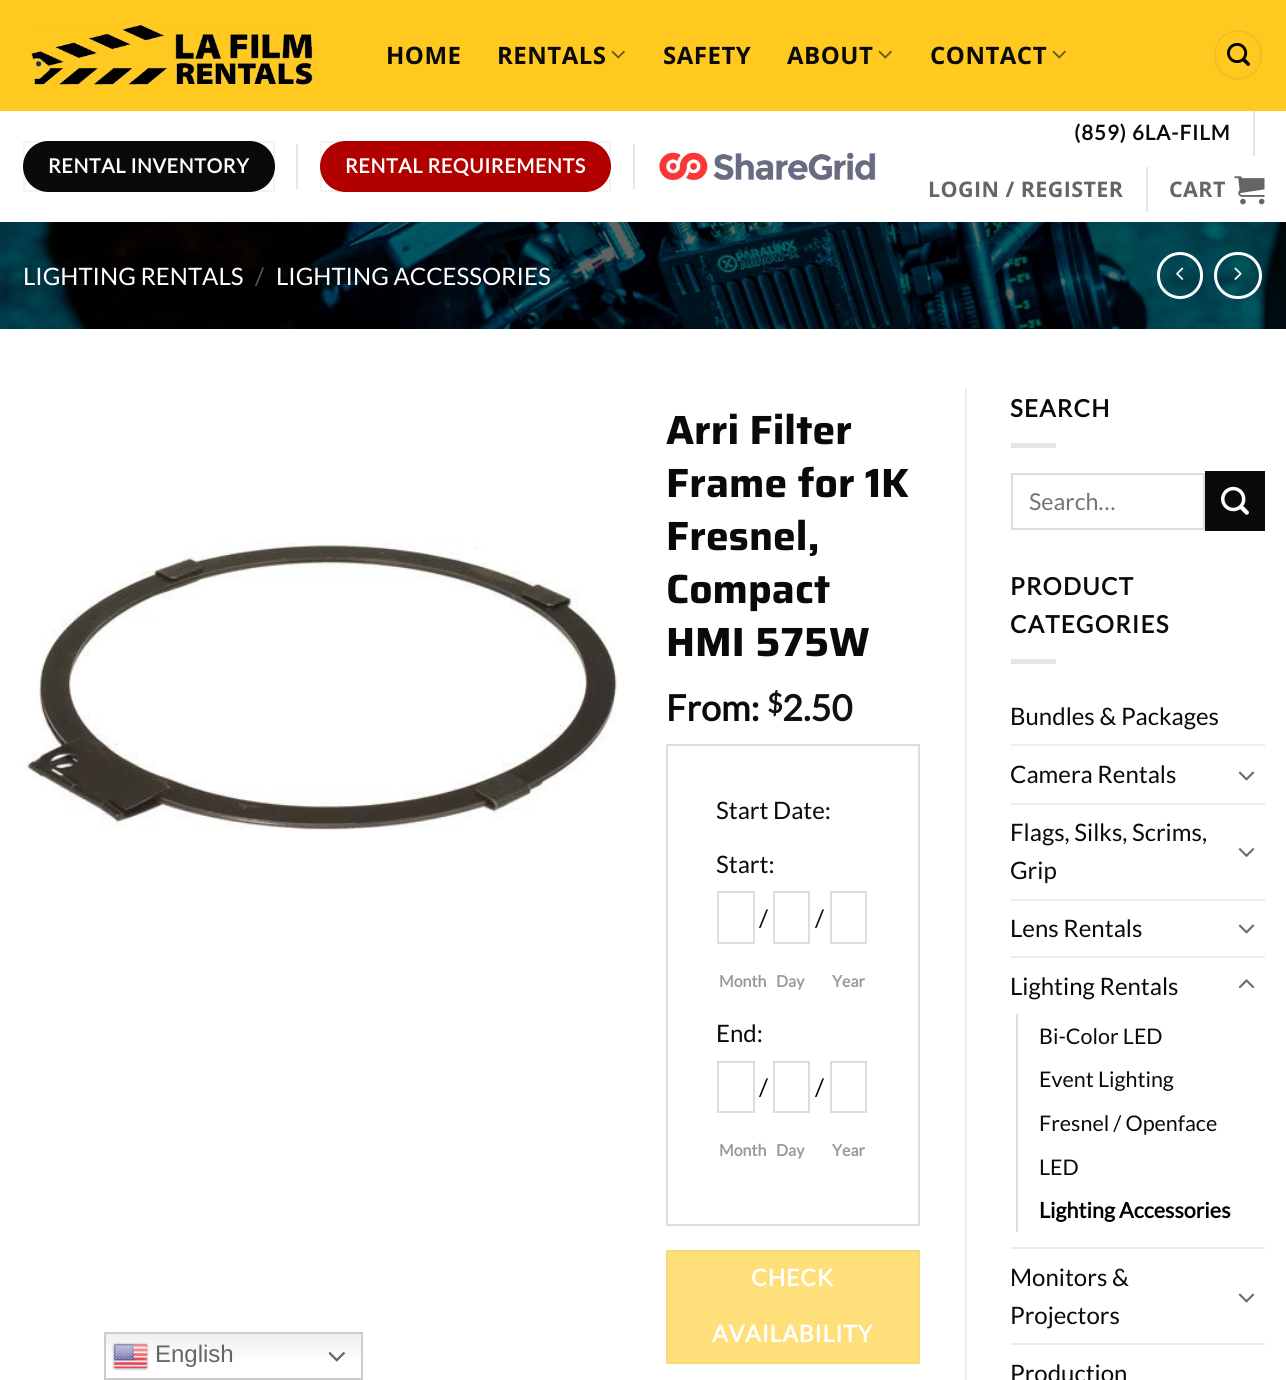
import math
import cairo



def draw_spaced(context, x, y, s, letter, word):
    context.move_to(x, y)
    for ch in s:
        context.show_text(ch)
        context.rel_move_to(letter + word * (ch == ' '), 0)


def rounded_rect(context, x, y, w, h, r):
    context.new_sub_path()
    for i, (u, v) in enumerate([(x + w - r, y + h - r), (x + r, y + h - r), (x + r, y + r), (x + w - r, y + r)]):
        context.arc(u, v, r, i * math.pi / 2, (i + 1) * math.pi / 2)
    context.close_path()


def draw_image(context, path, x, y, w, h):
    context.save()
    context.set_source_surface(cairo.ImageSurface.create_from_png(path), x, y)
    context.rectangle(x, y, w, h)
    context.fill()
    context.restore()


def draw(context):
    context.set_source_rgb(1, 1, 1)
    context.paint()
    context.set_source_rgb(1, 201 / 255, 32 / 255)
    context.rectangle(0, 0, 1286, 111)
    context.fill()
    draw_image(context, "images/1.png", 31, 24, 282, 61)
    draw_image(context, "images/2.png", 611, 50, 14, 9)
    draw_image(context, "images/2.png", 878, 50, 14, 9)
    draw_image(context, "images/2.png", 1052, 50, 14, 9)
    rounded_rect(context, 1215, 31, 46, 48, 23)
    context.set_source_rgb(242 / 255, 191 / 255, 30 / 255)
    context.stroke()
    draw_image(context, "images/3.png", 1227, 42, 23, 24)
    context.set_source_rgb(10 / 255, 10 / 255, 10 / 255)
    rounded_rect(context, 23, 141, 252, 51, 25.5)
    context.fill()
    context.rectangle(24, 142, 250, 49)
    context.set_source_rgba(0, 0, 0, 0.05)
    context.stroke()
    context.set_source_rgb(230 / 255, 230 / 255, 230 / 255)
    context.rectangle(296, 144, 2, 45)
    context.fill()
    context.set_source_rgb(178 / 255, 0, 0)
    rounded_rect(context, 320, 141, 291, 51, 25.5)
    context.fill()
    context.rectangle(321, 142, 289, 49)
    context.set_source_rgba(0, 0, 0, 0.05)
    context.stroke()
    context.set_source_rgb(230 / 255, 230 / 255, 230 / 255)
    context.rectangle(633, 144, 2, 45)
    context.fill()
    draw_image(context, "images/4.png", 659, 152, 217, 29)
    context.rectangle(1253, 111, 2, 45)
    context.fill()
    context.rectangle(1146, 167, 2, 45)
    context.fill()
    draw_image(context, "images/5.png", 1234, 176, 31, 29)
    draw_image(context, "images/6.png", 0, 222, 1286, 107)
    rounded_rect(context, 1158.5, 253.5, 43, 44, 21.5)
    context.set_source_rgb(1, 1, 1)
    context.set_line_width(3)
    context.stroke()
    draw_image(context, "images/7.png", 1176, 267, 8, 13)
    rounded_rect(context, 1215.5, 253.5, 45, 44, 22)
    context.stroke()
    draw_image(context, "images/8.png", 1234, 267, 8, 13)
    draw_image(context, "images/9.png", 22, 542, 595, 288)
    context.set_source_rgb(236 / 255, 236 / 255, 236 / 255)
    context.rectangle(965, 389, 2, 991)
    context.fill()
    context.rectangle(667, 745, 252, 480)
    context.set_source_rgb(221 / 255, 221 / 255, 221 / 255)
    context.set_line_width(2)
    context.stroke()
    context.rectangle(718, 892, 36, 51)
    context.stroke()
    context.rectangle(774, 892, 35, 51)
    context.stroke()
    context.rectangle(831, 892, 35, 51)
    context.stroke()
    context.rectangle(718, 1062, 36, 50)
    context.stroke()
    context.rectangle(774, 1062, 35, 50)
    context.stroke()
    context.rectangle(831, 1062, 35, 50)
    context.stroke()
    context.set_source_rgb(1, 223 / 255, 121 / 255)
    context.rectangle(667, 1251, 252, 112)
    context.fill_preserve()
    context.set_source_rgb(247 / 255, 217 / 255, 120 / 255)
    context.stroke()
    context.set_source_rgb(230 / 255, 230 / 255, 230 / 255)
    context.rectangle(1011, 443, 45, 5)
    context.fill()
    context.rectangle(1012, 474, 192, 55)
    context.set_source_rgb(221 / 255, 221 / 255, 221 / 255)
    context.stroke()
    context.set_source_rgb(10 / 255, 10 / 255, 10 / 255)
    context.rectangle(1205, 471, 60, 60)
    context.fill()
    draw_image(context, "images/10.png", 1221, 486, 28, 29)
    context.set_source_rgb(230 / 255, 230 / 255, 230 / 255)
    context.rectangle(1011, 659, 45, 5)
    context.fill()
    context.set_source_rgb(236 / 255, 236 / 255, 236 / 255)
    context.rectangle(1011, 744, 254, 2)
    context.fill()
    draw_image(context, "images/11.png", 1238, 771, 17, 10)
    context.rectangle(1011, 803, 254, 2)
    context.fill()
    draw_image(context, "images/12.png", 1238, 848, 17, 9)
    context.rectangle(1011, 899, 254, 2)
    context.fill()
    draw_image(context, "images/11.png", 1238, 924, 17, 10)
    context.rectangle(1011, 956, 254, 2)
    context.fill()
    draw_image(context, "images/13.png", 1238, 979, 17, 10)
    context.set_source_rgb(221 / 255, 221 / 255, 221 / 255)
    context.rectangle(1016, 1014, 2, 218)
    context.fill()
    context.set_source_rgb(236 / 255, 236 / 255, 236 / 255)
    context.rectangle(1011, 1247, 254, 2)
    context.fill()
    draw_image(context, "images/11.png", 1238, 1293, 17, 10)
    context.rectangle(1011, 1343, 254, 2)
    context.fill()
    gradient = cairo.LinearGradient(233, 1332, 233, 1380)
    gradient.add_color_stop_rgba(0, 239 / 255, 239 / 255, 239 / 255, 1)
    gradient.add_color_stop_rgba(0.7, 1, 1, 1, 1)
    context.set_source(gradient)
    context.rectangle(106, 1334, 255, 26)
    context.fill()
    context.rectangle(105, 1333, 257, 46)
    context.set_source_rgb(204 / 255, 204 / 255, 204 / 255)
    context.stroke()
    draw_image(context, "images/14.png", 112, 1342, 37, 29)
    draw_image(context, "images/15.png", 329, 1352, 16, 10)
    context.select_font_face("Open Sans", cairo.FontSlant.NORMAL, cairo.FontWeight.BOLD)
    context.set_font_size(24)
    context.set_source_rgb(10 / 255, 10 / 255, 10 / 255)
    draw_spaced(context, 386, 64, "HOME", 0.5, 0)
    draw_spaced(context, 497, 64, "RENTALS", 0.5, 0)
    draw_spaced(context, 663, 64, "SAFETY", 0.5, 0)
    draw_spaced(context, 787, 64, "ABOUT", 0.5, 0)
    draw_spaced(context, 930, 64, "CONTACT", 0.5, 0)
    context.select_font_face("Lato", cairo.FontSlant.NORMAL, cairo.FontWeight.BOLD)
    context.set_font_size(19.75)
    context.set_source_rgb(1, 1, 1)
    draw_spaced(context, 48, 173, "RENTAL INVENTORY", 0.6, 0)
    draw_spaced(context, 345, 173, "RENTAL REQUIREMENTS", 0.6, 0)
    context.set_font_size(20.5)
    context.set_source_rgb(10 / 255, 10 / 255, 10 / 255)
    draw_spaced(context, 1074, 140, "(859) 6LA-FILM", 1, 0)
    context.select_font_face("Open Sans", cairo.FontSlant.NORMAL, cairo.FontWeight.BOLD)
    context.set_font_size(21.5)
    context.set_source_rgb(101 / 255, 101 / 255, 101 / 255)
    draw_spaced(context, 928, 197, "LOGIN / REGISTER", 0.4, 0)
    draw_spaced(context, 1169, 197, "CART", 0.4, 0)
    context.select_font_face("Lato")
    context.set_font_size(24)
    context.set_source_rgb(1, 1, 1)
    context.move_to(23, 285)
    context.show_text("LIGHTING RENTALS")
    context.set_source_rgb(90 / 255, 89 / 255, 89 / 255)
    context.move_to(255, 285)
    context.show_text("/")
    context.set_source_rgb(1, 1, 1)
    context.move_to(276, 285)
    context.show_text("LIGHTING ACCESSORIES")
    context.select_font_face("Saira Thin")
    context.set_font_size(40.75)
    context.set_source_rgb(10 / 255, 10 / 255, 10 / 255)
    context.move_to(666, 444)
    context.show_text("Arri Filter")
    context.move_to(666, 497)
    context.show_text("Frame for 1K")
    context.move_to(666, 550)
    context.show_text("Fresnel,")
    context.move_to(666, 603)
    context.show_text("Compact")
    context.move_to(666, 656)
    context.show_text("HMI 575W")
    context.select_font_face("Lato", cairo.FontSlant.NORMAL, cairo.FontWeight.BOLD)
    context.set_font_size(36)
    context.move_to(666, 721)
    context.show_text("From:")
    context.set_font_size(27)
    context.set_source_rgb(17 / 255, 17 / 255, 17 / 255)
    context.move_to(767, 713)
    context.show_text("$")
    context.set_font_size(36)
    context.move_to(782, 721)
    context.show_text("2.50")
    context.select_font_face("Lato")
    context.set_font_size(24)
    context.set_source_rgb(10 / 255, 10 / 255, 10 / 255)
    context.move_to(716, 819)
    context.show_text("Start Date:")
    context.move_to(716, 873)
    context.show_text("Start:")
    context.move_to(759, 927)
    context.show_text("/")
    context.move_to(815, 927)
    context.show_text("/")
    context.select_font_face("Lato", cairo.FontSlant.NORMAL, cairo.FontWeight.BOLD)
    context.set_font_size(16)
    context.set_source_rgb(153 / 255, 153 / 255, 153 / 255)
    context.move_to(719, 987)
    context.show_text("Month")
    context.move_to(776, 987)
    context.show_text("Day")
    context.move_to(832, 987)
    context.show_text("Year")
    context.select_font_face("Lato")
    context.set_font_size(24)
    context.set_source_rgb(10 / 255, 10 / 255, 10 / 255)
    context.move_to(716, 1042)
    context.show_text("End:")
    context.move_to(759, 1096)
    context.show_text("/")
    context.move_to(815, 1096)
    context.show_text("/")
    context.select_font_face("Lato", cairo.FontSlant.NORMAL, cairo.FontWeight.BOLD)
    context.set_font_size(16)
    context.set_source_rgb(153 / 255, 153 / 255, 153 / 255)
    context.move_to(719, 1156)
    context.show_text("Month")
    context.move_to(776, 1156)
    context.show_text("Day")
    context.move_to(832, 1156)
    context.show_text("Year")
    context.set_font_size(23.25)
    context.set_source_rgb(1, 1, 1)
    draw_spaced(context, 751, 1286, "CHECK", 0.75, 0)
    draw_spaced(context, 712, 1342, "AVAILABILITY", 0.75, 0)
    context.set_font_size(24)
    context.set_source_rgb(10 / 255, 10 / 255, 10 / 255)
    draw_spaced(context, 1010, 417, "SEARCH", 1.25, 0)
    context.select_font_face("Lato")
    context.set_font_size(23.25)
    context.set_source_rgb(117 / 255, 117 / 255, 117 / 255)
    context.move_to(1029, 510)
    context.show_text("Search…")
    context.select_font_face("Lato", cairo.FontSlant.NORMAL, cairo.FontWeight.BOLD)
    context.set_font_size(24)
    context.set_source_rgb(10 / 255, 10 / 255, 10 / 255)
    draw_spaced(context, 1010, 595, "PRODUCT", 1.25, 0)
    draw_spaced(context, 1010, 633, "CATEGORIES", 1.25, 0)
    context.select_font_face("Lato")
    context.move_to(1010, 725)
    context.show_text("Bundles & Packages")
    context.move_to(1010, 783)
    context.show_text("Camera Rentals")
    context.move_to(1010, 841)
    context.show_text("Flags, Silks, Scrims,")
    context.move_to(1010, 879)
    context.show_text("Grip")
    context.move_to(1010, 937)
    context.show_text("Lens Rentals")
    context.move_to(1010, 995)
    context.show_text("Lighting Rentals")
    context.set_font_size(21.5)
    context.move_to(1039, 1044)
    context.show_text("Bi-Color LED")
    context.move_to(1039, 1087)
    context.show_text("Event Lighting")
    context.move_to(1039, 1131)
    context.show_text("Fresnel / Openface")
    context.move_to(1039, 1175)
    context.show_text("LED")
    context.select_font_face("Lato", cairo.FontSlant.NORMAL, cairo.FontWeight.BOLD)
    context.set_source_rgb(0, 0, 0)
    context.move_to(1039, 1218)
    context.show_text("Lighting Accessories")
    context.select_font_face("Lato")
    context.set_font_size(24)
    context.set_source_rgb(10 / 255, 10 / 255, 10 / 255)
    context.move_to(1010, 1286)
    context.show_text("Monitors &")
    context.move_to(1010, 1324)
    context.show_text("Projectors")
    context.move_to(1010, 1382)
    context.show_text("Production")
    context.select_font_face("Liberation Sans")
    context.set_source_rgb(101 / 255, 101 / 255, 101 / 255)
    context.move_to(155, 1362)
    context.show_text("English")


surface = cairo.ImageSurface(cairo.Format.RGB24, 1286, 1380)
context = cairo.Context(surface)
options = cairo.FontOptions()
options.set_hint_metrics(cairo.HintMetrics.OFF)
options.set_hint_style(cairo.HintStyle.NONE)
context.set_font_options(options)
context.set_miter_limit(4)
draw(context)
surface.write_to_png("out.png")
